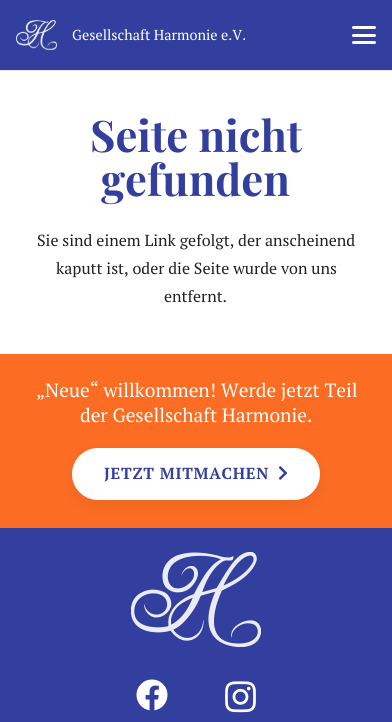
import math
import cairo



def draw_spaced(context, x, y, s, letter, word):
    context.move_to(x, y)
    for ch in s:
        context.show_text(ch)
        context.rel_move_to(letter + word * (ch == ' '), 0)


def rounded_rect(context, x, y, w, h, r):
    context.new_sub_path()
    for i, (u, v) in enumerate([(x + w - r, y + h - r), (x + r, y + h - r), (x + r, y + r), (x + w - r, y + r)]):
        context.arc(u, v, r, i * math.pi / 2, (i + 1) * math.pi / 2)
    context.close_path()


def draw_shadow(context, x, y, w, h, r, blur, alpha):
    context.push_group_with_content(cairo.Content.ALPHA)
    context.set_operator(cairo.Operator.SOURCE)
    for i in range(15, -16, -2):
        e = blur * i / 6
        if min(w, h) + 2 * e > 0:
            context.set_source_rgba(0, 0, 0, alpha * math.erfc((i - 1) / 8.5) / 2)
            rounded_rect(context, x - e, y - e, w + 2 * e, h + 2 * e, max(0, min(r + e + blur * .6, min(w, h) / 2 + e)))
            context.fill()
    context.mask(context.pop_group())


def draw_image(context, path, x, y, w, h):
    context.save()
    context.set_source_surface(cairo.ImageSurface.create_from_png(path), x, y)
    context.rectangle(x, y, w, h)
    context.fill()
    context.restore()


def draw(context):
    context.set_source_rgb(1, 1, 1)
    context.paint()
    context.set_source_rgb(235 / 255, 235 / 255, 235 / 255)
    context.rectangle(0, 70, 392, 1)
    context.fill()
    context.set_source_rgb(51 / 255, 63 / 255, 158 / 255)
    context.rectangle(0, 0, 392, 70)
    context.fill()
    draw_image(context, "images/1.png", 16, 20, 41, 30)
    context.set_source_rgb(1, 1, 1)
    rounded_rect(context, 352, 34, 24, 3, 1.5)
    context.fill()
    rounded_rect(context, 352, 26, 24, 3, 1.5)
    context.fill()
    rounded_rect(context, 352, 41, 24, 3, 1.5)
    context.fill()
    context.set_source_rgb(252 / 255, 108 / 255, 35 / 255)
    context.rectangle(0, 354, 392, 174)
    context.fill()
    context.set_source_rgb(0, 0, 0)
    draw_shadow(context, 72, 454, 248, 52, 26, 6.5, 0.05)
    context.set_source_rgb(1, 1, 1)
    rounded_rect(context, 72, 448, 248, 52, 26)
    context.fill()
    draw_image(context, "images/2.png", 278, 466, 10, 14)
    context.set_source_rgb(51 / 255, 63 / 255, 158 / 255)
    context.rectangle(0, 528, 392, 194)
    context.fill()
    draw_image(context, "images/3.png", 131, 552, 130, 95)
    draw_image(context, "images/4.png", 136, 679, 32, 32)
    draw_image(context, "images/5.png", 225, 681, 31, 32)
    context.select_font_face("PT Serif")
    context.set_font_size(14.4)
    context.set_source_rgb(1, 1, 1)
    context.move_to(72, 40)
    context.show_text("Gesellschaft Harmonie e.V.")
    context.select_font_face("Playfair Display", cairo.FontSlant.NORMAL, cairo.FontWeight.BOLD)
    context.set_font_size(43.5)
    context.set_source_rgb(51 / 255, 63 / 255, 158 / 255)
    context.move_to(90, 152)
    context.show_text("Seite nicht")
    context.move_to(101, 196)
    context.show_text("gefunden")
    context.select_font_face("PT Serif")
    context.set_font_size(16)
    context.set_source_rgb(33 / 255, 33 / 255, 33 / 255)
    context.move_to(37, 246)
    context.show_text("Sie sind einem Link gefolgt, der anscheinend")
    context.move_to(56, 274)
    context.show_text("kaputt ist, oder die Seite wurde von uns")
    context.move_to(164, 302)
    context.show_text("entfernt.")
    context.set_font_size(19.25)
    context.set_source_rgb(1, 1, 1)
    context.move_to(36, 397)
    context.show_text("„Neue“ willkommen! Werde jetzt Teil")
    context.move_to(80, 422)
    context.show_text("der Gesellschaft Harmonie.")
    context.select_font_face("PT Serif", cairo.FontSlant.NORMAL, cairo.FontWeight.BOLD)
    context.set_font_size(16)
    context.set_source_rgb(51 / 255, 63 / 255, 158 / 255)
    draw_spaced(context, 104, 479, "JETZT MITMACHEN", 0.75, 0)


surface = cairo.ImageSurface(cairo.Format.RGB24, 392, 722)
context = cairo.Context(surface)
options = cairo.FontOptions()
options.set_hint_metrics(cairo.HintMetrics.OFF)
options.set_hint_style(cairo.HintStyle.NONE)
context.set_font_options(options)
context.set_miter_limit(4)
draw(context)
surface.write_to_png("out.png")
